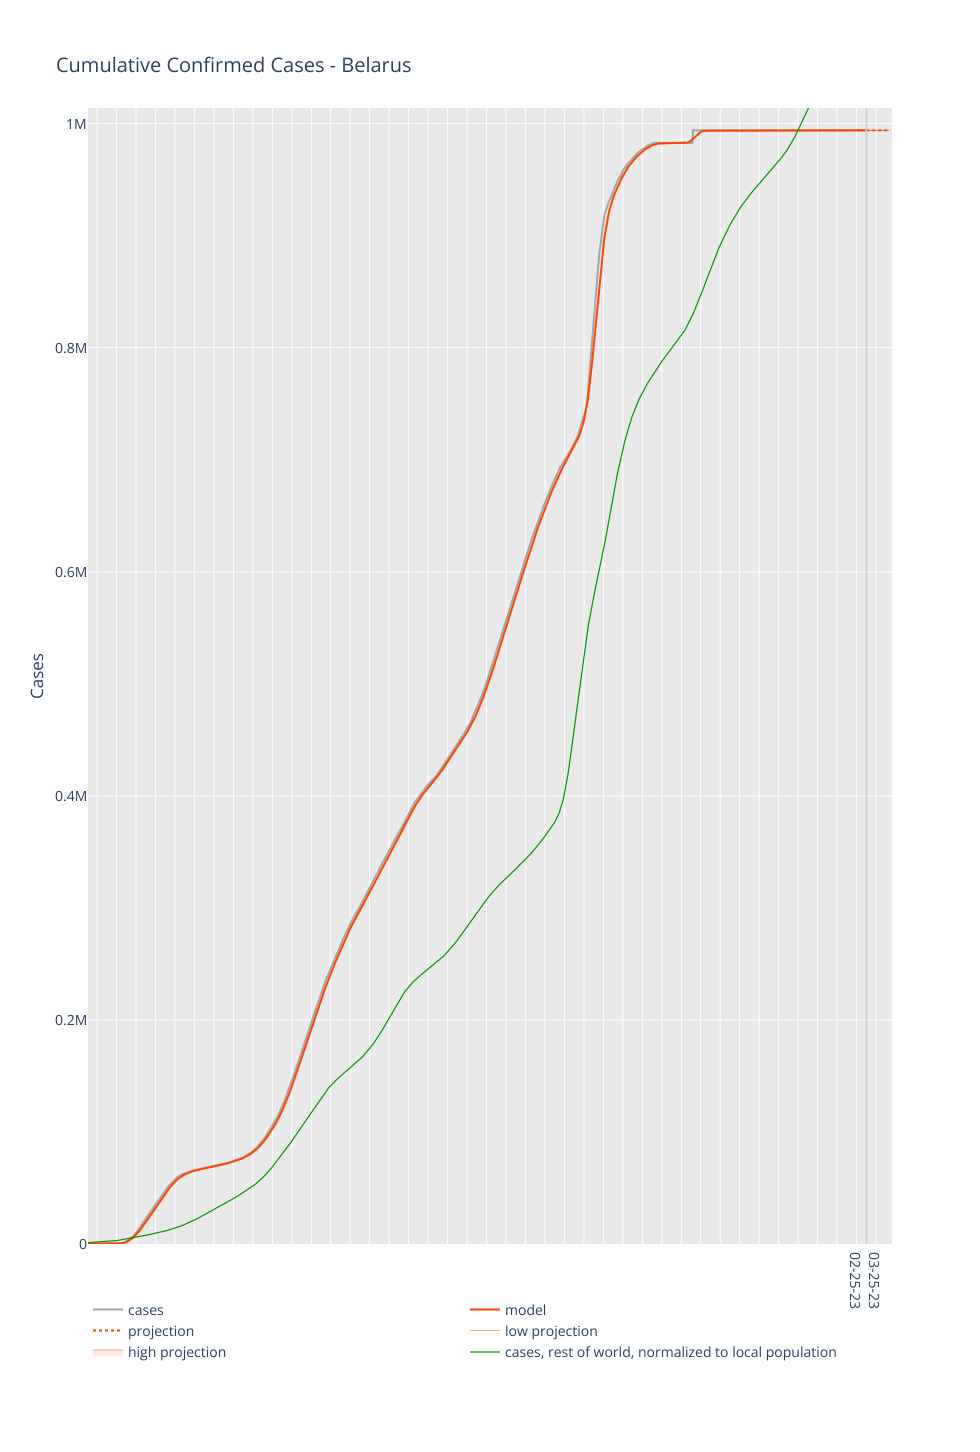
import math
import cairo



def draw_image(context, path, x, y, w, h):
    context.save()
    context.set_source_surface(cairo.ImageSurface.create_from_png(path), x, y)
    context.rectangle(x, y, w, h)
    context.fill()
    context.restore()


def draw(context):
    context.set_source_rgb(1, 1, 1)
    context.paint()
    draw_image(context, "images/1.png", 88, 108, 804, 1136)
    context.new_path()
    context.move_to(866.5, 1244)
    context.line_to(866.5, 108)
    context.set_source_rgb(200 / 255, 200 / 255, 200 / 255)
    context.set_line_width(1.5)
    context.stroke()
    context.new_path()
    context.move_to(93, 1309.5)
    context.line_to(123, 1309.5)
    context.set_source_rgb(165 / 255, 165 / 255, 165 / 255)
    context.set_line_width(2)
    context.stroke()
    context.new_path()
    context.move_to(470, 1309.5)
    context.line_to(500, 1309.5)
    context.set_source_rgb(1, 69 / 255, 0)
    context.stroke()
    context.new_path()
    context.move_to(93, 1330.5)
    context.line_to(123, 1330.5)
    context.set_dash([3, 3])
    context.stroke()
    context.set_source_rgb(1, 162 / 255, 128 / 255)
    context.rectangle(470, 1330, 30, 1)
    context.fill()
    context.set_source_rgb(1, 236 / 255, 230 / 255)
    context.rectangle(93, 1350, 30, 6)
    context.fill()
    context.new_path()
    context.move_to(93, 1350)
    context.line_to(123, 1350)
    context.set_source_rgb(1, 69 / 255, 0)
    context.set_line_width(0.5)
    context.set_dash([])
    context.stroke()
    context.new_path()
    context.move_to(470, 1352)
    context.line_to(500, 1352)
    context.set_source_rgb(0, 150 / 255, 0)
    context.set_line_width(1.2)
    context.stroke()
    context.select_font_face("Open Sans")
    context.set_font_size(20)
    context.set_source_rgb(42 / 255, 63 / 255, 95 / 255)
    context.move_to(56, 72)
    context.show_text("Cumulative Confirmed Cases - Belarus")
    context.set_font_size(17)
    context.save()
    context.translate(43, 699)
    context.rotate(-90 * math.pi / 180)
    context.move_to(0, 0)
    context.show_text("Cases")
    context.restore()
    context.set_font_size(14)
    context.move_to(128, 1315)
    context.show_text("cases")
    context.move_to(505, 1315)
    context.show_text("model")
    context.move_to(128, 1336)
    context.show_text("projection")
    context.move_to(505, 1336)
    context.show_text("low projection")
    context.move_to(128, 1357)
    context.show_text("high projection")
    context.move_to(505, 1357)
    context.show_text("cases, rest of world, normalized to local population")
    context.move_to(66, 129)
    context.show_text("1M")
    context.move_to(55, 353)
    context.show_text("0.8M")
    context.move_to(55, 577)
    context.show_text("0.6M")
    context.move_to(55, 801)
    context.show_text("0.4M")
    context.move_to(55, 1025)
    context.show_text("0.2M")
    context.move_to(79, 1249)
    context.show_text("0")
    context.save()
    context.translate(850, 1252)
    context.rotate(90 * math.pi / 180)
    context.move_to(0, 0)
    context.show_text("02-25-23")
    context.restore()
    context.save()
    context.translate(869, 1252)
    context.rotate(90 * math.pi / 180)
    context.move_to(0, 0)
    context.show_text("03-25-23")
    context.restore()


surface = cairo.ImageSurface(cairo.Format.RGB24, 980, 1452)
context = cairo.Context(surface)
options = cairo.FontOptions()
options.set_hint_metrics(cairo.HintMetrics.OFF)
options.set_hint_style(cairo.HintStyle.NONE)
context.set_font_options(options)
context.set_miter_limit(4)
draw(context)
surface.write_to_png("out.png")
